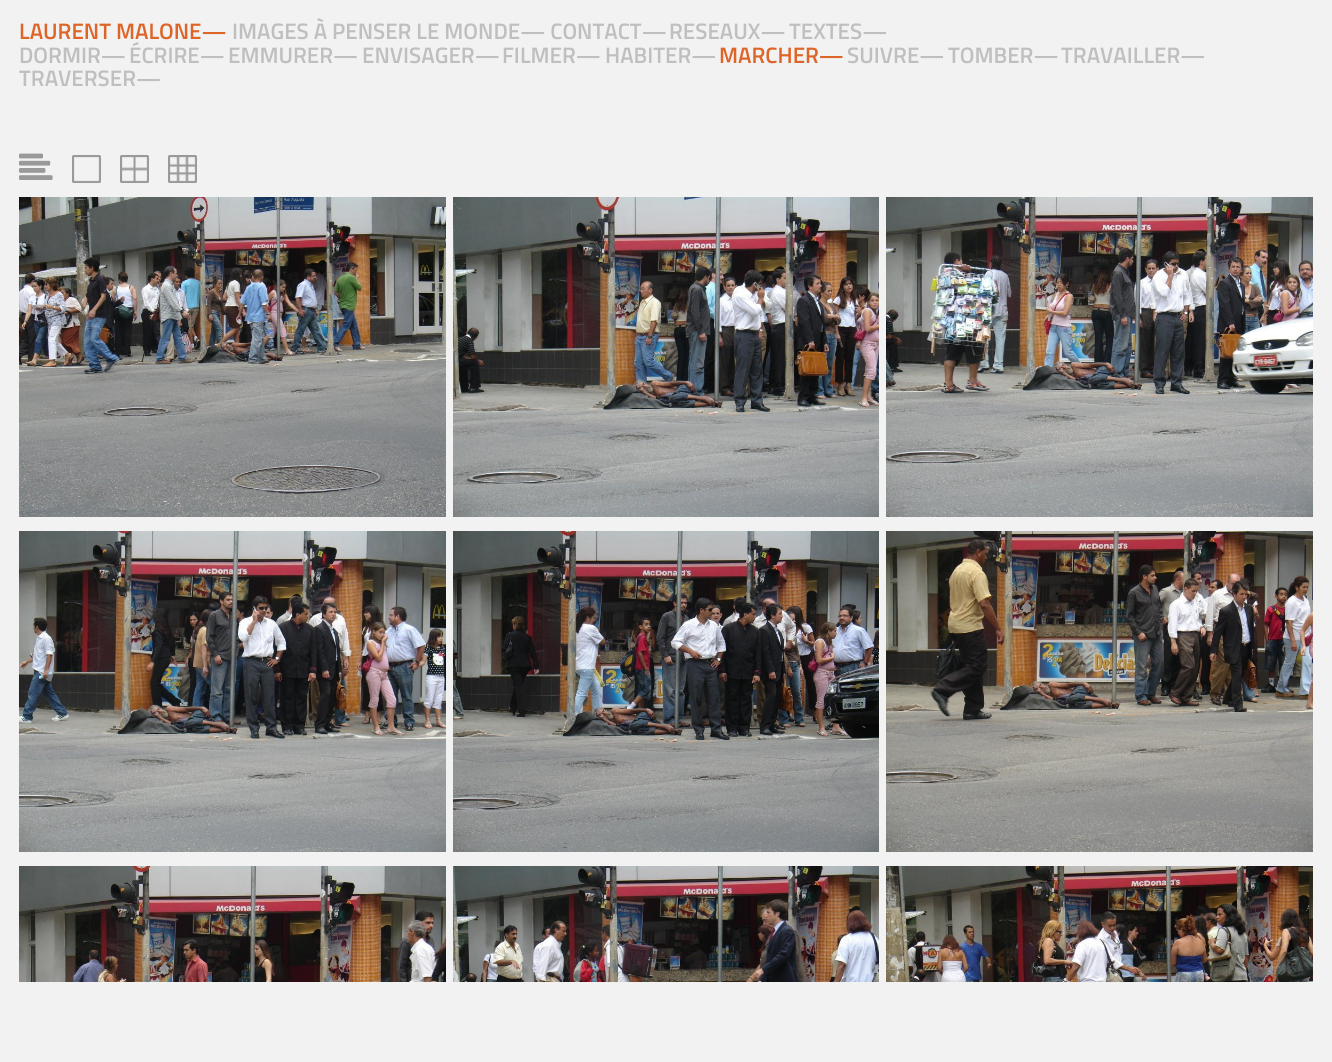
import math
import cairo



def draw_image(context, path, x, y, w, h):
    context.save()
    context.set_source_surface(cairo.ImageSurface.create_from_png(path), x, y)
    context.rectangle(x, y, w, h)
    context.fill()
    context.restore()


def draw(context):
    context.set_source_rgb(242 / 255, 242 / 255, 242 / 255)
    context.paint()
    draw_image(context, "images/1.png", 19, 153, 34, 27)
    draw_image(context, "images/2.png", 72, 155, 29, 28)
    draw_image(context, "images/3.png", 120, 155, 29, 28)
    draw_image(context, "images/4.png", 168, 155, 29, 28)
    draw_image(context, "images/5.png", 19, 197, 427, 320)
    draw_image(context, "images/6.png", 453, 197, 426, 320)
    draw_image(context, "images/7.png", 886, 197, 427, 320)
    draw_image(context, "images/8.png", 19, 531, 427, 321)
    draw_image(context, "images/9.png", 453, 531, 426, 321)
    draw_image(context, "images/10.png", 886, 531, 427, 321)
    draw_image(context, "images/11.png", 19, 866, 427, 116)
    draw_image(context, "images/12.png", 453, 866, 426, 116)
    draw_image(context, "images/13.png", 886, 866, 427, 116)
    context.select_font_face("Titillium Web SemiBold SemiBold")
    context.set_font_size(22.4)
    context.set_source_rgb(222 / 255, 101 / 255, 40 / 255)
    context.move_to(19, 39)
    context.show_text("LAURENT MALONE—")
    context.set_source_rgb(191 / 255, 191 / 255, 191 / 255)
    context.move_to(232, 39)
    context.show_text("IMAGES À PENSER LE MONDE— CONTACT—")
    context.move_to(669, 39)
    context.show_text("RESEAUX—")
    context.move_to(789, 39)
    context.show_text("TEXTES—")
    context.move_to(19, 63)
    context.show_text("DORMIR—")
    context.move_to(129, 63)
    context.show_text("ÉCRIRE—")
    context.move_to(228, 63)
    context.show_text("EMMURER—")
    context.move_to(362, 63)
    context.show_text("ENVISAGER—")
    context.move_to(502, 63)
    context.show_text("FILMER—")
    context.move_to(605, 63)
    context.show_text("HABITER—")
    context.set_source_rgb(222 / 255, 101 / 255, 40 / 255)
    context.move_to(719, 63)
    context.show_text("MARCHER—")
    context.set_source_rgb(191 / 255, 191 / 255, 191 / 255)
    context.move_to(847, 63)
    context.show_text("SUIVRE—")
    context.move_to(948, 63)
    context.show_text("TOMBER—")
    context.move_to(1061, 63)
    context.show_text("TRAVAILLER—")
    context.move_to(19, 86)
    context.show_text("TRAVERSER—")


surface = cairo.ImageSurface(cairo.Format.RGB24, 1332, 1062)
context = cairo.Context(surface)
options = cairo.FontOptions()
options.set_hint_metrics(cairo.HintMetrics.OFF)
options.set_hint_style(cairo.HintStyle.NONE)
context.set_font_options(options)
context.set_miter_limit(4)
draw(context)
surface.write_to_png("out.png")
